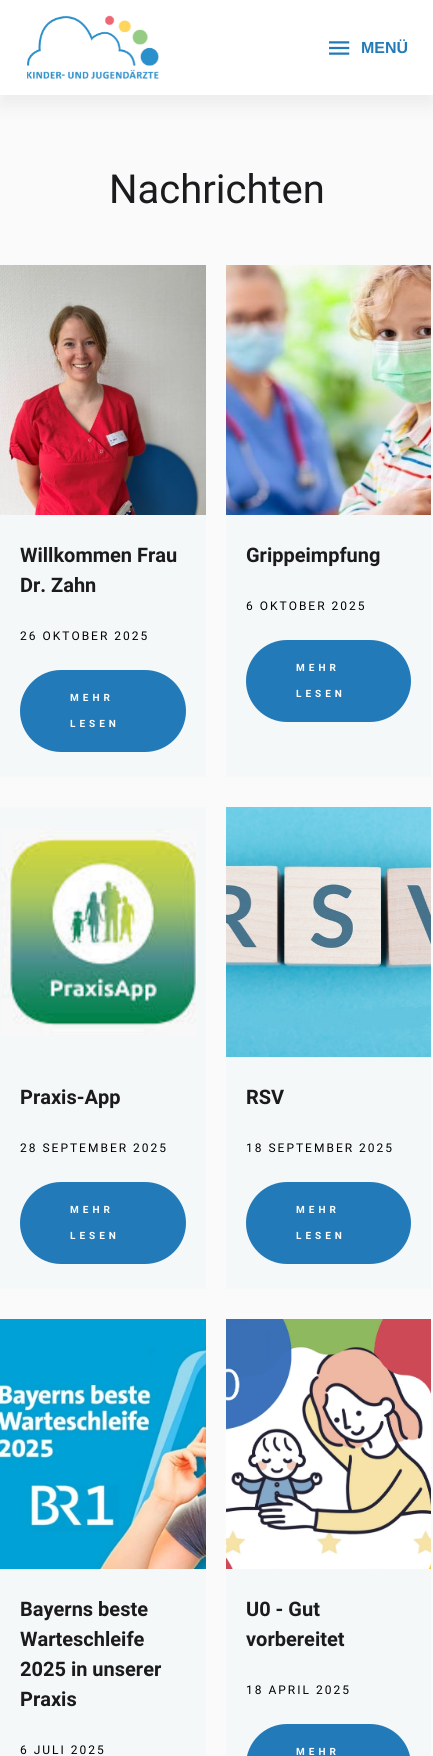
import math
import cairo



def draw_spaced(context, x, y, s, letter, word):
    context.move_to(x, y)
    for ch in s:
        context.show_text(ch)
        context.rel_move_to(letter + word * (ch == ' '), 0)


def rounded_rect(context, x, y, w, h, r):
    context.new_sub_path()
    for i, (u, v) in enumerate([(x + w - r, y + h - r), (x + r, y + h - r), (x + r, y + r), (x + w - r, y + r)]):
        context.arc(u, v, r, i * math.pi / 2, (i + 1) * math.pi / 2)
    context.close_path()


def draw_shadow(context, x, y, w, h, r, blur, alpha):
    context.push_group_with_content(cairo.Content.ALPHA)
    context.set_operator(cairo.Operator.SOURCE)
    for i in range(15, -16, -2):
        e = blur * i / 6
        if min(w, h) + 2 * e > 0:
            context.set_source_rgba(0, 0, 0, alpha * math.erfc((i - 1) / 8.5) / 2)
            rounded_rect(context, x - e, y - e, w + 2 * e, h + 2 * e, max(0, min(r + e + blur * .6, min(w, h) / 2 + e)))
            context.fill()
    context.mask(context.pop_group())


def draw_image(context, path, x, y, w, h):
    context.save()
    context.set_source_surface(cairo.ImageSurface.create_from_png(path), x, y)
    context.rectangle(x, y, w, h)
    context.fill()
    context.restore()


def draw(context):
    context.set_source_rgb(250 / 255, 250 / 255, 250 / 255)
    context.paint()
    context.set_source_rgb(0, 0, 0)
    draw_shadow(context, 0, 10, 433, 95, 0, 10, 0.06)
    context.set_source_rgb(1, 1, 1)
    context.rectangle(0, 0, 433, 95)
    context.fill()
    draw_image(context, "images/1.png", 27, 15, 132, 64)
    draw_image(context, "images/2.png", 329, 41, 21, 14)
    context.set_source_rgb(245 / 255, 248 / 255, 248 / 255)
    context.rectangle(0, 515, 206, 262)
    context.fill()
    draw_image(context, "images/3.png", 0, 265, 206, 250)
    context.set_source_rgb(35 / 255, 122 / 255, 184 / 255)
    rounded_rect(context, 20, 670, 166, 82, 41)
    context.fill()
    context.set_source_rgb(245 / 255, 248 / 255, 248 / 255)
    context.rectangle(226, 515, 205, 262)
    context.fill()
    draw_image(context, "images/4.png", 226, 265, 205, 250)
    context.set_source_rgb(35 / 255, 122 / 255, 184 / 255)
    rounded_rect(context, 246, 640, 165, 82, 41)
    context.fill()
    context.set_source_rgb(245 / 255, 248 / 255, 248 / 255)
    context.rectangle(0, 807, 206, 482)
    context.fill()
    draw_image(context, "images/5.png", 1, 829, 196, 207)
    context.set_source_rgb(35 / 255, 122 / 255, 184 / 255)
    rounded_rect(context, 20, 1182, 166, 82, 41)
    context.fill()
    context.set_source_rgb(245 / 255, 248 / 255, 248 / 255)
    context.rectangle(226, 1057, 205, 232)
    context.fill()
    draw_image(context, "images/6.png", 226, 807, 205, 250)
    context.set_source_rgb(35 / 255, 122 / 255, 184 / 255)
    rounded_rect(context, 246, 1182, 165, 82, 41)
    context.fill()
    context.set_source_rgb(245 / 255, 248 / 255, 248 / 255)
    context.rectangle(0, 1569, 206, 187)
    context.fill()
    draw_image(context, "images/7.png", 0, 1319, 206, 250)
    context.rectangle(226, 1569, 205, 187)
    context.fill()
    draw_image(context, "images/8.png", 226, 1319, 205, 250)
    context.set_source_rgb(35 / 255, 122 / 255, 184 / 255)
    rounded_rect(context, 246, 1724, 165, 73, 41)
    context.fill()
    context.select_font_face("Liberation Sans", cairo.FontSlant.NORMAL, cairo.FontWeight.BOLD)
    context.set_font_size(16)
    context.move_to(361, 53)
    context.show_text("MENÜ")
    context.select_font_face("Roboto")
    context.set_font_size(40)
    context.set_source_rgb(27 / 255, 27 / 255, 29 / 255)
    context.move_to(109, 203)
    context.show_text("Nachrichten")
    context.select_font_face("Roboto", cairo.FontSlant.NORMAL, cairo.FontWeight.BOLD)
    context.set_font_size(20)
    context.move_to(20, 562)
    context.show_text("Willkommen Frau")
    context.move_to(20, 592)
    context.show_text("Dr. Zahn")
    context.select_font_face("Roboto")
    context.set_font_size(12)
    context.set_source_rgb(0, 0, 0)
    draw_spaced(context, 20, 640, "26 OKTOBER 2025", 2, 0)
    context.select_font_face("Roboto", cairo.FontSlant.NORMAL, cairo.FontWeight.BOLD)
    context.set_font_size(10)
    context.set_source_rgb(1, 1, 1)
    draw_spaced(context, 70, 701, "MEHR", 4, 0)
    draw_spaced(context, 70, 727, "LESEN", 4, 0)
    context.set_font_size(20)
    context.set_source_rgb(27 / 255, 27 / 255, 29 / 255)
    context.move_to(246, 562)
    context.show_text("Grippeimpfung")
    context.select_font_face("Roboto")
    context.set_font_size(12)
    context.set_source_rgb(0, 0, 0)
    draw_spaced(context, 246, 610, "6 OKTOBER 2025", 2, 0)
    context.select_font_face("Roboto", cairo.FontSlant.NORMAL, cairo.FontWeight.BOLD)
    context.set_font_size(10)
    context.set_source_rgb(1, 1, 1)
    draw_spaced(context, 296, 671, "MEHR", 4, 0)
    draw_spaced(context, 296, 697, "LESEN", 4, 0)
    context.set_font_size(20)
    context.set_source_rgb(27 / 255, 27 / 255, 29 / 255)
    context.move_to(20, 1104)
    context.show_text("Praxis-App")
    context.select_font_face("Roboto")
    context.set_font_size(12)
    context.set_source_rgb(0, 0, 0)
    draw_spaced(context, 20, 1152, "28 SEPTEMBER 2025", 2, 0)
    context.select_font_face("Roboto", cairo.FontSlant.NORMAL, cairo.FontWeight.BOLD)
    context.set_font_size(10)
    context.set_source_rgb(1, 1, 1)
    draw_spaced(context, 70, 1213, "MEHR", 4, 0)
    draw_spaced(context, 70, 1239, "LESEN", 4, 0)
    context.set_font_size(20)
    context.set_source_rgb(27 / 255, 27 / 255, 29 / 255)
    context.move_to(246, 1104)
    context.show_text("RSV")
    context.select_font_face("Roboto")
    context.set_font_size(12)
    context.set_source_rgb(0, 0, 0)
    draw_spaced(context, 246, 1152, "18 SEPTEMBER 2025", 2, 0)
    context.select_font_face("Roboto", cairo.FontSlant.NORMAL, cairo.FontWeight.BOLD)
    context.set_font_size(10)
    context.set_source_rgb(1, 1, 1)
    draw_spaced(context, 296, 1213, "MEHR", 4, 0)
    draw_spaced(context, 296, 1239, "LESEN", 4, 0)
    context.set_font_size(20)
    context.set_source_rgb(27 / 255, 27 / 255, 29 / 255)
    context.move_to(20, 1616)
    context.show_text("Bayerns beste")
    context.move_to(20, 1646)
    context.show_text("Warteschleife")
    context.move_to(20, 1676)
    context.show_text("2025 in unserer")
    context.move_to(20, 1706)
    context.show_text("Praxis")
    context.select_font_face("Roboto")
    context.set_font_size(12)
    context.set_source_rgb(0, 0, 0)
    draw_spaced(context, 20, 1754, "6 JULI 2025", 2, 0)
    context.select_font_face("Roboto", cairo.FontSlant.NORMAL, cairo.FontWeight.BOLD)
    context.set_font_size(20)
    context.set_source_rgb(27 / 255, 27 / 255, 29 / 255)
    context.move_to(246, 1616)
    context.show_text("U0 - Gut")
    context.move_to(246, 1646)
    context.show_text("vorbereitet")
    context.select_font_face("Roboto")
    context.set_font_size(12)
    context.set_source_rgb(0, 0, 0)
    draw_spaced(context, 246, 1694, "18 APRIL 2025", 2, 0)
    context.select_font_face("Roboto", cairo.FontSlant.NORMAL, cairo.FontWeight.BOLD)
    context.set_font_size(10)
    context.set_source_rgb(1, 1, 1)
    draw_spaced(context, 296, 1755, "MEHR", 4, 0)


surface = cairo.ImageSurface(cairo.Format.RGB24, 433, 1756)
context = cairo.Context(surface)
options = cairo.FontOptions()
options.set_hint_metrics(cairo.HintMetrics.OFF)
options.set_hint_style(cairo.HintStyle.NONE)
context.set_font_options(options)
context.set_miter_limit(4)
draw(context)
surface.write_to_png("out.png")
